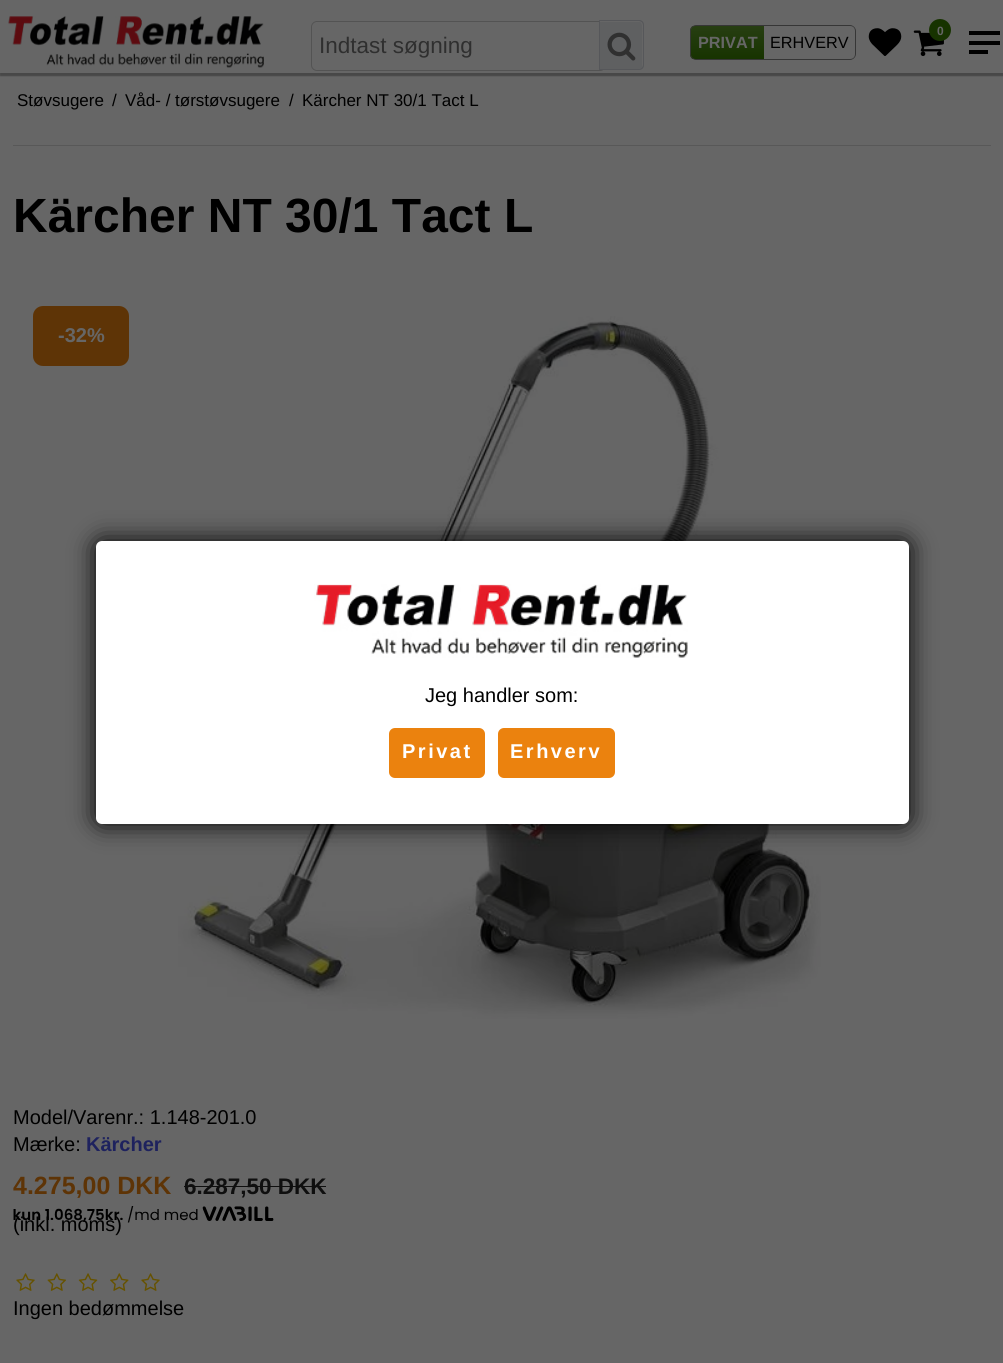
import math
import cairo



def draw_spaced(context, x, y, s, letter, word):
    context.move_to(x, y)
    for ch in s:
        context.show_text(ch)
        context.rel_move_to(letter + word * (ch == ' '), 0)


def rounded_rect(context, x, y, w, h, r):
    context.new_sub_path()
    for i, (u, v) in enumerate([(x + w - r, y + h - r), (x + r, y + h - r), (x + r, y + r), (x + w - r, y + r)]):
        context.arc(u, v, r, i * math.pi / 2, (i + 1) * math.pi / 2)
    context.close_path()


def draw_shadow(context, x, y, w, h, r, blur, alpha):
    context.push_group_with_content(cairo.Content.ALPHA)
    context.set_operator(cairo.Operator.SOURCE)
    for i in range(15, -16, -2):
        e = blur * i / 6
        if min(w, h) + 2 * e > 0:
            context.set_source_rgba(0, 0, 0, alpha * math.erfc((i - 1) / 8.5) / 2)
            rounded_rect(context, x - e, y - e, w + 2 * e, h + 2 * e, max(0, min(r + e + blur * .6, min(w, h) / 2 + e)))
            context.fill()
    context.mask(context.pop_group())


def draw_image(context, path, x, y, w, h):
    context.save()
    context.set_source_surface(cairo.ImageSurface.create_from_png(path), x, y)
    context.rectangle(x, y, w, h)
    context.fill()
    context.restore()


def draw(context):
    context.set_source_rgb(102 / 255, 102 / 255, 102 / 255)
    context.paint()
    context.set_source_rgb(0, 0, 0)
    draw_shadow(context, 0, 4, 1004, 72, 0, 0.5, 0.3)
    context.set_source_rgb(102 / 255, 102 / 255, 102 / 255)
    context.rectangle(0, 3, 1003, 70)
    context.fill()
    draw_image(context, "images/1.png", 8, 16, 256, 52)
    rounded_rect(context, 311.5, 21.5, 294, 49, 5.5)
    context.set_source_rgb(83 / 255, 83 / 255, 83 / 255)
    context.set_line_width(1)
    context.stroke()
    context.set_source_rgb(95 / 255, 96 / 255, 97 / 255)
    context.new_path()
    context.move_to(599, 20)
    context.line_to(639, 20)
    context.curve_to(642, 20, 644, 22, 644, 25)
    context.line_to(644, 65)
    context.curve_to(644, 68, 642, 70, 639, 70)
    context.line_to(599, 70)
    context.close_path()
    context.fill()
    context.set_source_rgb(102 / 255, 102 / 255, 102 / 255)
    context.new_path()
    context.move_to(600, 22)
    context.line_to(640, 22)
    context.curve_to(643, 23, 642, 31, 642, 33)
    context.line_to(642, 68)
    context.curve_to(642, 67, 643, 66, 643, 65)
    context.line_to(643, 25)
    context.curve_to(643, 23, 641, 21, 639, 21)
    context.line_to(600, 21)
    context.close_path()
    context.fill()
    context.new_path()
    context.move_to(599.5, 20.5)
    context.line_to(639, 20.5)
    context.curve_to(641.5, 20.5, 643.5, 22.5, 643.5, 25)
    context.line_to(643.5, 65)
    context.curve_to(643.5, 67.5, 641.5, 69.5, 639, 69.5)
    context.line_to(599.5, 69.5)
    context.close_path()
    context.set_source_rgb(86 / 255, 87 / 255, 90 / 255)
    context.stroke()
    draw_image(context, "images/2.png", 607, 32, 29, 29)
    context.save()
    context.new_path()
    context.move_to(696, 25)
    context.line_to(764, 25)
    context.line_to(764, 60)
    context.line_to(696, 60)
    context.curve_to(692.5, 60, 690, 57.5, 690, 54)
    context.line_to(690, 31)
    context.curve_to(690, 27.5, 692.5, 25, 696, 25)
    context.close_path()
    context.clip()
    gradient = cairo.LinearGradient(728, 26, 728, 59)
    gradient.add_color_stop_rgba(0, 39 / 255, 62 / 255, 18 / 255, 1)
    gradient.add_color_stop_rgba(1, 23 / 255, 51 / 255, 0, 1)
    context.set_source(gradient)
    context.rectangle(690, 26, 74, 33)
    context.fill()
    context.restore()
    context.set_source_rgb(54 / 255, 54 / 255, 54 / 255)
    context.set_fill_rule(cairo.FillRule.EVEN_ODD)
    context.new_path()
    context.move_to(696, 25)
    context.line_to(764, 25)
    context.line_to(764, 60)
    context.line_to(696, 60)
    context.curve_to(693, 60, 690, 57, 690, 54)
    context.line_to(690, 31)
    context.curve_to(690, 28, 693, 25, 696, 25)
    context.close_path()
    context.move_to(696, 26)
    context.line_to(764, 26)
    context.line_to(764, 59)
    context.line_to(696, 59)
    context.curve_to(693, 59, 691, 57, 691, 54)
    context.line_to(691, 31)
    context.curve_to(691, 28, 693, 26, 696, 26)
    context.close_path()
    context.fill()
    context.new_path()
    context.move_to(764, 25)
    context.line_to(850, 25)
    context.curve_to(853, 25, 856, 28, 856, 31)
    context.line_to(856, 54)
    context.curve_to(856, 57, 853, 60, 850, 60)
    context.line_to(764, 60)
    context.close_path()
    context.move_to(764, 26)
    context.line_to(850, 26)
    context.curve_to(853, 26, 855, 28, 855, 31)
    context.line_to(855, 54)
    context.curve_to(855, 57, 853, 59, 850, 59)
    context.line_to(764, 59)
    context.close_path()
    context.fill()
    draw_image(context, "images/3.png", 868, 28, 34, 28)
    draw_image(context, "images/4.png", 913, 30, 31, 27)
    context.set_source_rgb(23 / 255, 51 / 255, 0)
    context.arc(940, 30, 11, 0, 2 * math.pi)
    context.fill()
    context.set_source_rgb(0, 0, 0)
    context.rectangle(969, 31, 31, 4)
    context.fill()
    context.rectangle(969, 41, 31, 4)
    context.fill()
    context.rectangle(969, 50, 19, 4)
    context.fill()
    context.set_source_rgb(88 / 255, 88 / 255, 88 / 255)
    context.rectangle(13, 145, 978, 1)
    context.fill()
    context.set_source_rgb(94 / 255, 52 / 255, 6 / 255)
    rounded_rect(context, 33, 306, 96, 60, 10)
    context.fill()
    draw_image(context, "images/5.png", 178, 316, 643, 703)
    context.set_source_rgb(15 / 255, 15 / 255, 15 / 255)
    context.rectangle(184, 1186, 142, 1)
    context.fill()
    draw_image(context, "images/7.png", 16, 1273, 19, 18)
    draw_image(context, "images/8.png", 47, 1273, 19, 18)
    draw_image(context, "images/9.png", 78, 1273, 20, 18)
    draw_image(context, "images/10.png", 110, 1273, 19, 18)
    draw_image(context, "images/7.png", 141, 1273, 19, 18)
    context.set_source_rgb(0, 0, 0)
    draw_shadow(context, 96, 541, 813, 283, 6, 12.5, 1)
    context.set_source_rgb(1, 1, 1)
    rounded_rect(context, 96, 541, 813, 283, 6)
    context.fill()
    draw_image(context, "images/11.png", 314, 584, 374, 74)
    context.set_source_rgb(235 / 255, 130 / 255, 14 / 255)
    rounded_rect(context, 389, 728, 96, 50, 6)
    context.fill()
    rounded_rect(context, 498, 728, 117, 50, 6)
    context.fill()
    context.select_font_face("Liberation Sans")
    context.set_font_size(22.5)
    context.set_source_rgb(47 / 255, 47 / 255, 47 / 255)
    context.move_to(319, 53)
    context.show_text("Indtast søgning")
    context.select_font_face("Liberation Sans", cairo.FontSlant.NORMAL, cairo.FontWeight.BOLD)
    context.set_font_size(16.25)
    context.set_source_rgb(102 / 255, 102 / 255, 102 / 255)
    context.move_to(698, 48)
    context.show_text("PRIVAT")
    context.select_font_face("Liberation Sans")
    context.set_source_rgb(0, 0, 0)
    context.move_to(770, 48)
    context.show_text("ERHVERV")
    context.select_font_face("Liberation Sans", cairo.FontSlant.NORMAL, cairo.FontWeight.BOLD)
    context.set_font_size(12)
    context.set_source_rgb(102 / 255, 102 / 255, 102 / 255)
    context.move_to(937, 35)
    context.show_text("0")
    context.select_font_face("Liberation Sans")
    context.set_font_size(17)
    context.set_source_rgb(0, 0, 0)
    context.move_to(17, 106)
    context.show_text("Støvsugere")
    context.move_to(112, 106)
    context.show_text("/")
    context.move_to(125, 106)
    context.show_text("Våd- / tørstøvsugere")
    context.move_to(289, 106)
    context.show_text("/")
    context.move_to(302, 106)
    context.show_text("Kärcher NT 30/1 Tact L")
    context.select_font_face("Liberation Sans", cairo.FontSlant.NORMAL, cairo.FontWeight.BOLD)
    context.set_font_size(48)
    context.move_to(13, 232)
    context.show_text("Kärcher NT 30/1 Tact L")
    context.set_font_size(20)
    context.set_source_rgb(102 / 255, 102 / 255, 102 / 255)
    context.move_to(58, 342)
    context.show_text("-32%")
    context.select_font_face("Liberation Sans")
    context.set_source_rgb(0, 0, 0)
    context.move_to(13, 1124)
    context.show_text("Model/Varenr.: 1.148-201.0")
    context.move_to(13, 1151)
    context.show_text("Mærke:")
    context.select_font_face("Liberation Sans", cairo.FontSlant.NORMAL, cairo.FontWeight.BOLD)
    context.set_source_rgb(30 / 255, 34 / 255, 94 / 255)
    context.move_to(86, 1151)
    context.show_text("Kärcher")
    context.set_font_size(25)
    context.set_source_rgb(94 / 255, 52 / 255, 6 / 255)
    context.move_to(13, 1194)
    context.show_text("4.275,00 DKK")
    context.set_font_size(22.5)
    context.set_source_rgb(15 / 255, 15 / 255, 15 / 255)
    context.move_to(184, 1194)
    context.show_text("6.287,50 DKK")
    context.select_font_face("Liberation Sans")
    context.set_font_size(20)
    context.set_source_rgb(0, 0, 0)
    context.move_to(13, 1231)
    context.show_text("(inkl. moms)")
    draw_image(context, "images/6.png", 13, 1206, 261, 17)
    context.move_to(13, 1315)
    context.show_text("Ingen bedømmelse")
    context.move_to(425, 702)
    context.show_text("Jeg handler som:")
    context.select_font_face("Liberation Sans", cairo.FontSlant.NORMAL, cairo.FontWeight.BOLD)
    context.set_source_rgb(1, 1, 1)
    draw_spaced(context, 402, 758, "Privat", 2.5, 0)
    draw_spaced(context, 510, 758, "Erhverv", 2.5, 0)


surface = cairo.ImageSurface(cairo.Format.RGB24, 1003, 1363)
context = cairo.Context(surface)
options = cairo.FontOptions()
options.set_hint_metrics(cairo.HintMetrics.OFF)
options.set_hint_style(cairo.HintStyle.NONE)
context.set_font_options(options)
context.set_miter_limit(4)
draw(context)
surface.write_to_png("out.png")
